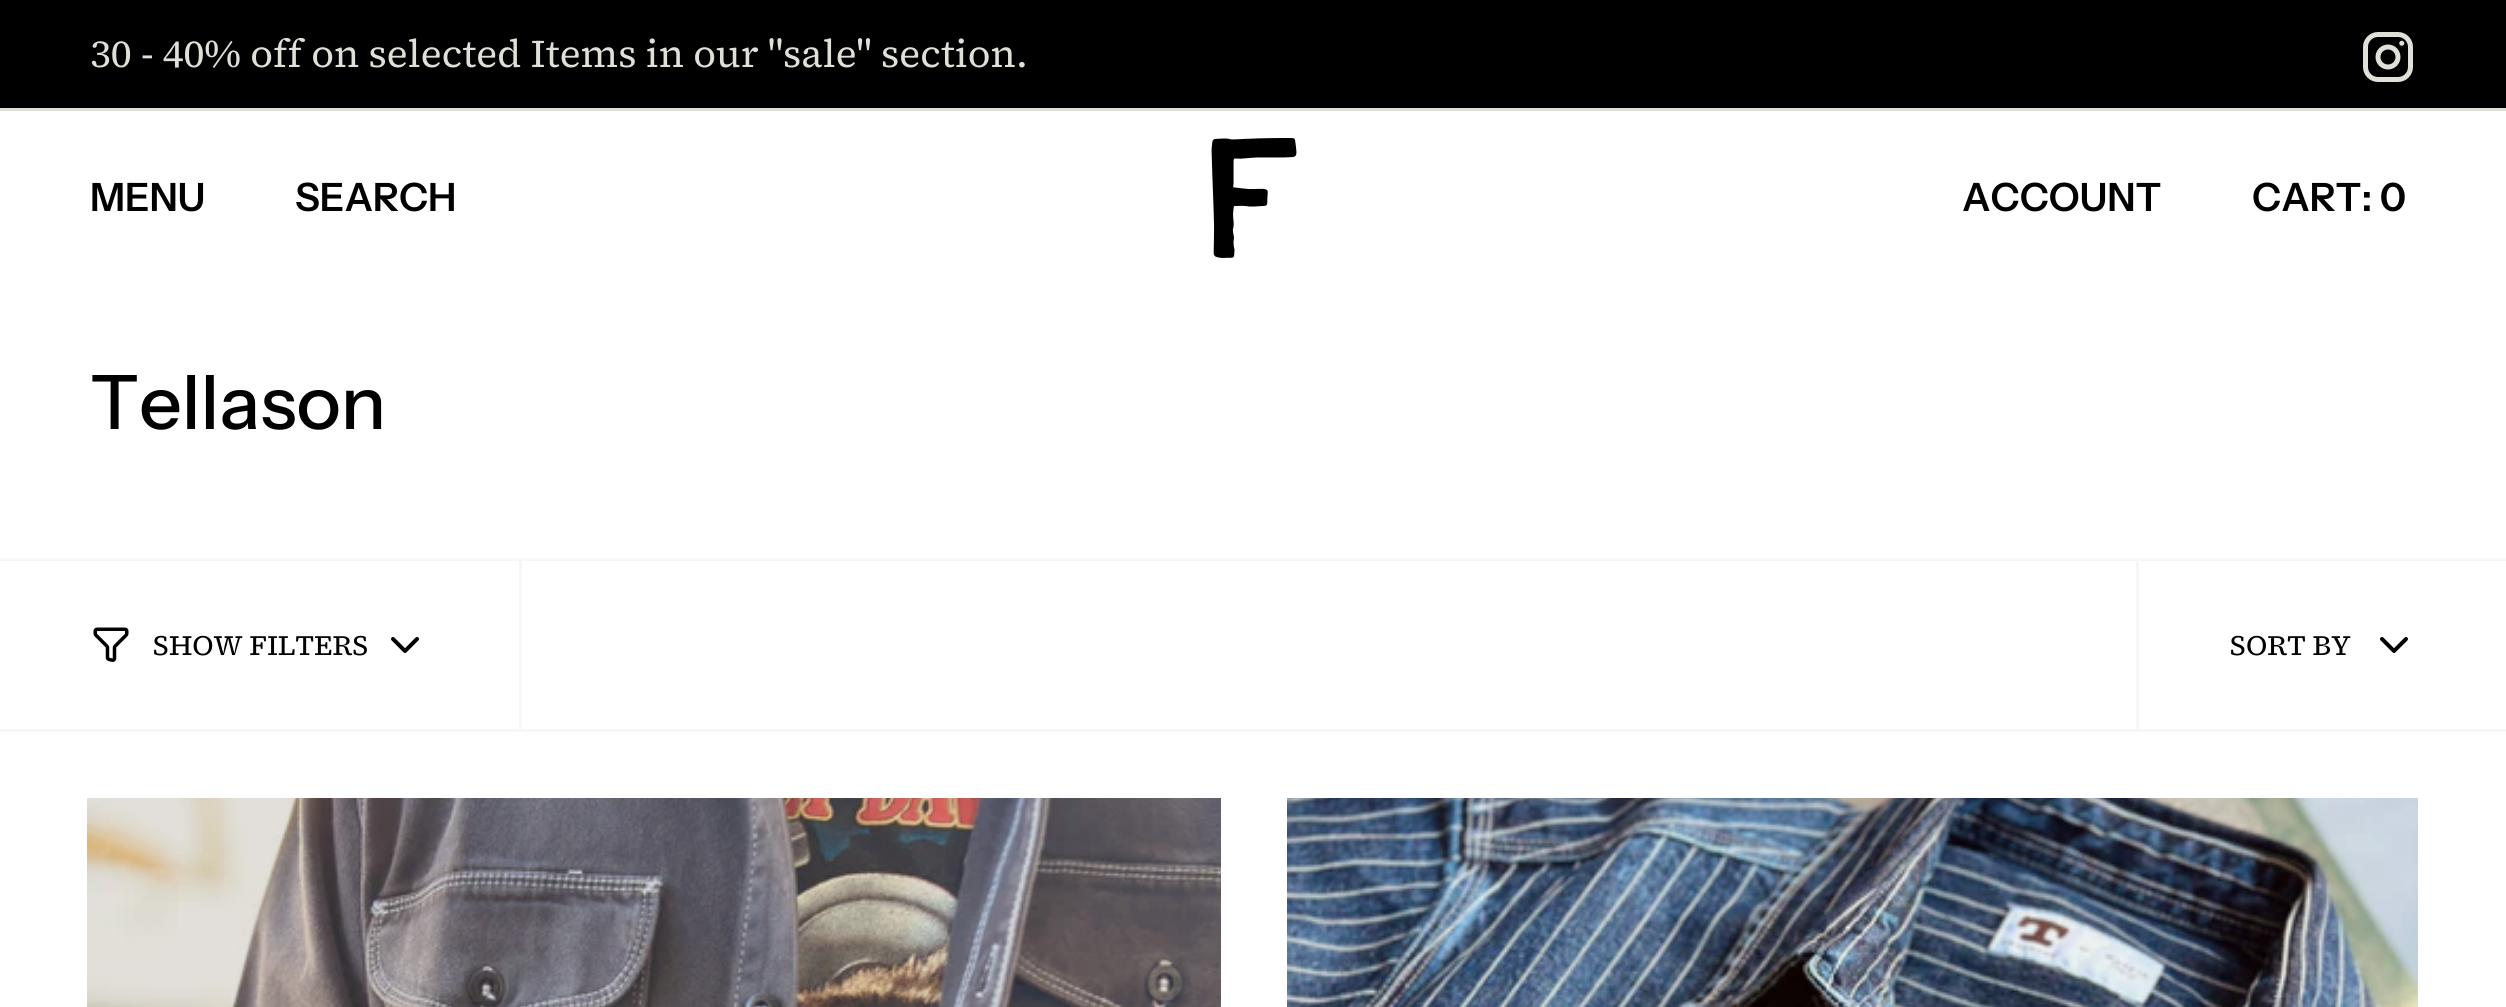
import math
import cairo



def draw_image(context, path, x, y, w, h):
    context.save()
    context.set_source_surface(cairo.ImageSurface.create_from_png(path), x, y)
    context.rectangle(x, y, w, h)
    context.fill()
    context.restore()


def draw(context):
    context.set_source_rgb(1, 1, 1)
    context.paint()
    context.set_source_rgb(0, 0, 0)
    context.rectangle(0, 0, 2506, 108)
    context.fill()
    draw_image(context, "images/1.png", 2363, 32, 50, 50)
    context.set_source_rgb(222 / 255, 225 / 255, 216 / 255)
    context.rectangle(0, 108, 2506, 3)
    context.fill()
    draw_image(context, "images/2.png", 1211, 138, 86, 120)
    context.set_source_rgb(247 / 255, 247 / 255, 247 / 255)
    context.rectangle(0, 558, 2506, 3)
    context.fill()
    context.rectangle(0, 729, 2506, 3)
    context.fill()
    context.rectangle(519, 561, 3, 168)
    context.fill()
    draw_image(context, "images/3.png", 93, 627, 36, 35)
    context.new_path()
    context.move_to(393, 639)
    context.line_to(405, 651)
    context.line_to(417, 639)
    context.set_source_rgb(0, 0, 0)
    context.set_line_width(4)
    context.set_line_cap(cairo.LineCap.ROUND)
    context.set_line_join(cairo.LineJoin.ROUND)
    context.stroke()
    context.set_source_rgb(247 / 255, 247 / 255, 247 / 255)
    context.rectangle(2136, 561, 3, 168)
    context.fill()
    context.new_path()
    context.move_to(2382, 639)
    context.line_to(2394, 651)
    context.line_to(2406, 639)
    context.set_source_rgb(0, 0, 0)
    context.stroke()
    draw_image(context, "images/4.png", 87, 798, 1134, 209)
    draw_image(context, "images/5.png", 1287, 798, 1131, 209)
    context.select_font_face("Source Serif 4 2")
    context.set_font_size(39)
    context.set_source_rgb(222 / 255, 225 / 255, 216 / 255)
    context.move_to(90, 67)
    context.show_text("30 - 40% off on selected Items in our \"sale\" section.")
    context.select_font_face("Instrument Sans SemiBold")
    context.set_source_rgb(0, 0, 0)
    context.move_to(90, 211)
    context.show_text("MENU")
    context.move_to(295, 211)
    context.show_text("SEARCH")
    context.move_to(1962, 211)
    context.show_text("ACCOUNT")
    context.move_to(2252, 211)
    context.show_text("CART: 0")
    context.select_font_face("Instrument Sans Medium")
    context.set_font_size(75)
    context.move_to(90, 429)
    context.show_text("Tellason")
    context.select_font_face("Source Serif 4")
    context.set_font_size(28)
    context.move_to(153, 655)
    context.show_text("SHOW FILTERS")
    context.move_to(2230, 655)
    context.show_text("SORT BY")


surface = cairo.ImageSurface(cairo.Format.RGB24, 2506, 1007)
context = cairo.Context(surface)
options = cairo.FontOptions()
options.set_hint_metrics(cairo.HintMetrics.OFF)
options.set_hint_style(cairo.HintStyle.NONE)
context.set_font_options(options)
context.set_miter_limit(4)
draw(context)
surface.write_to_png("out.png")
